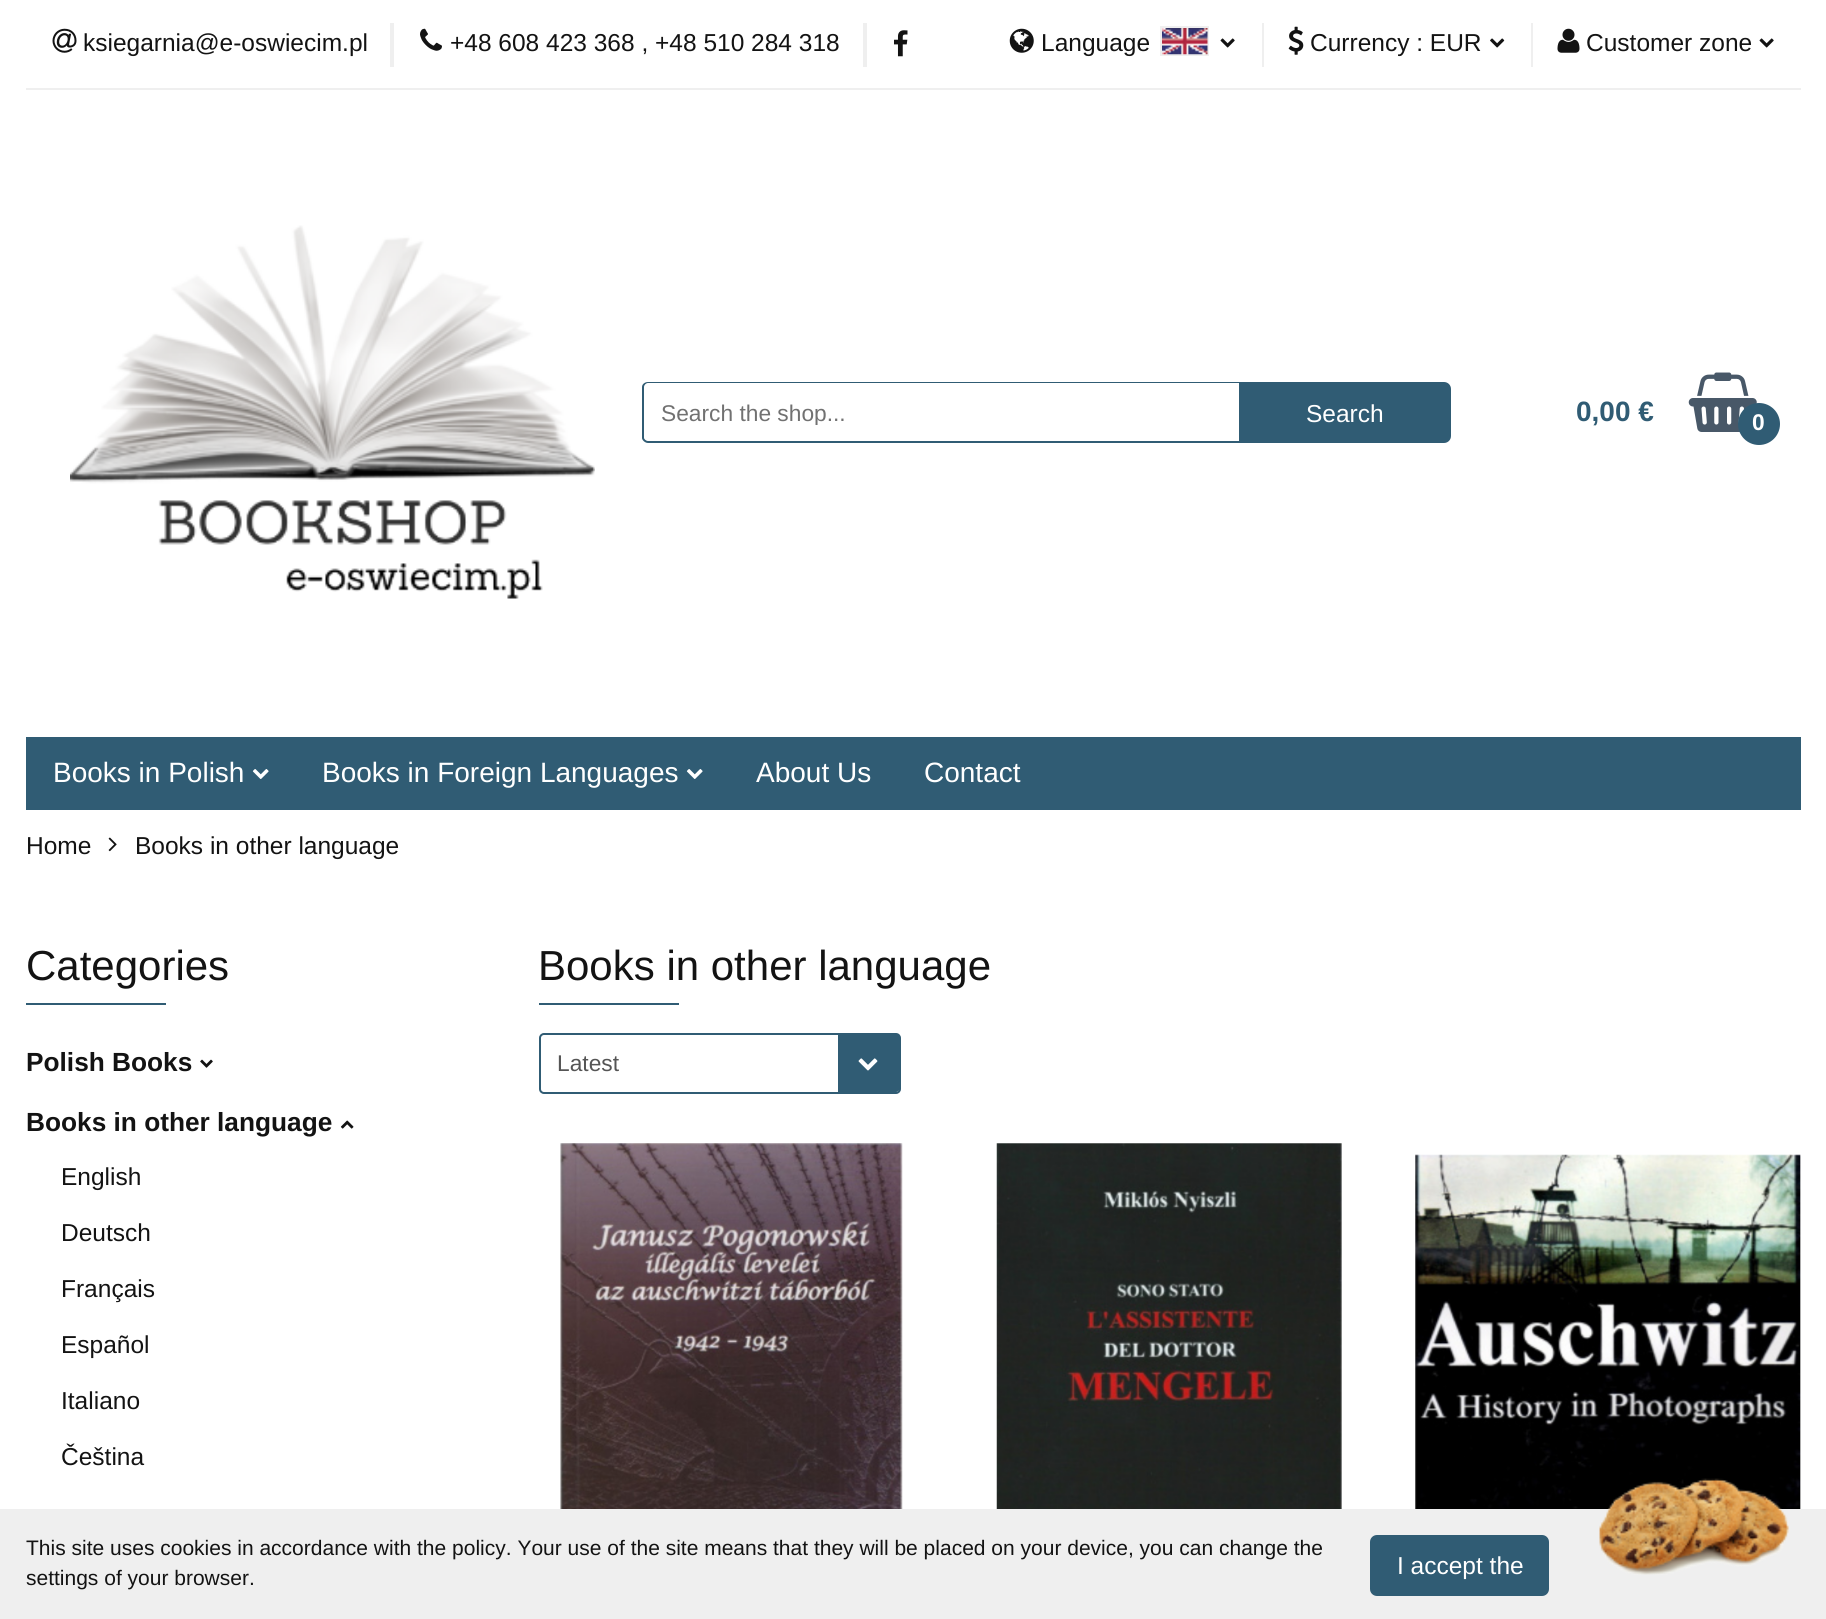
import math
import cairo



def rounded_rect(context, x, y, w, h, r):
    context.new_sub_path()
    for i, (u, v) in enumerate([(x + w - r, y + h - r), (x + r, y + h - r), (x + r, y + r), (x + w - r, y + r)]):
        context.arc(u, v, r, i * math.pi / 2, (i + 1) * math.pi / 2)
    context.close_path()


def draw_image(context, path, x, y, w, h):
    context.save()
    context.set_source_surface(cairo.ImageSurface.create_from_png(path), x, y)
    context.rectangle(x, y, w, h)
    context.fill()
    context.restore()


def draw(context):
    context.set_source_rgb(1, 1, 1)
    context.paint()
    context.set_source_rgb(239 / 255, 239 / 255, 239 / 255)
    context.rectangle(26, 88, 1775, 2)
    context.fill()
    draw_image(context, "images/1.png", 52, 28, 25, 25)
    context.rectangle(390, 23, 4, 44)
    context.fill()
    draw_image(context, "images/2.png", 420, 28, 22, 23)
    context.rectangle(863, 23, 4, 44)
    context.fill()
    draw_image(context, "images/3.png", 894, 30, 14, 27)
    draw_image(context, "images/4.png", 1009, 28, 25, 25)
    context.rectangle(1161, 27, 47, 28)
    context.stroke()
    draw_image(context, "images/5.png", 1162, 28, 46, 27)
    draw_image(context, "images/6.png", 1220, 38, 15, 10)
    context.rectangle(1262, 23, 2, 44)
    context.fill()
    draw_image(context, "images/7.png", 1288, 26, 16, 29)
    draw_image(context, "images/8.png", 1490, 38, 15, 10)
    context.rectangle(1531, 23, 2, 44)
    context.fill()
    draw_image(context, "images/9.png", 1557, 28, 23, 25)
    draw_image(context, "images/6.png", 1759, 38, 15, 10)
    draw_image(context, "images/10.png", 70, 225, 525, 374)
    context.set_source_rgb(48 / 255, 92 / 255, 116 / 255)
    context.set_fill_rule(cairo.FillRule.EVEN_ODD)
    context.new_path()
    context.move_to(648, 382)
    context.line_to(1239, 382)
    context.line_to(1239, 443)
    context.line_to(648, 443)
    context.curve_to(645, 443, 642, 440, 642, 438)
    context.line_to(642, 387)
    context.curve_to(642, 384, 645, 382, 648, 382)
    context.close_path()
    context.move_to(648, 383)
    context.line_to(1239, 383)
    context.line_to(1239, 441)
    context.line_to(648, 441)
    context.curve_to(646, 441, 644, 439, 644, 438)
    context.line_to(644, 387)
    context.curve_to(644, 385, 646, 383, 648, 383)
    context.close_path()
    context.fill()
    context.new_path()
    context.move_to(1241.5, 384.5)
    context.line_to(1444, 384.5)
    context.curve_to(1446.5, 384.5, 1448.5, 386.5, 1448.5, 389)
    context.line_to(1448.5, 436)
    context.curve_to(1448.5, 438.5, 1446.5, 440.5, 1444, 440.5)
    context.line_to(1241.5, 440.5)
    context.close_path()
    context.fill_preserve()
    context.set_line_width(5)
    context.stroke()
    draw_image(context, "images/11.png", 1688, 372, 69, 60)
    context.arc(1759, 424, 21, 0, 2 * math.pi)
    context.fill()
    context.rectangle(26, 737, 1775, 73)
    context.fill()
    draw_image(context, "images/12.png", 252, 769, 17, 10)
    draw_image(context, "images/12.png", 686, 769, 17, 10)
    draw_image(context, "images/13.png", 108, 837, 9, 15)
    context.rectangle(26, 1003, 140, 2)
    context.fill()
    draw_image(context, "images/14.png", 200, 1059, 13, 9)
    draw_image(context, "images/15.png", 340, 1120, 14, 9)
    context.rectangle(539, 1003, 140, 2)
    context.fill()
    rounded_rect(context, 540, 1034, 360, 59, 4)
    context.set_line_width(2)
    context.stroke()
    context.new_path()
    context.move_to(838, 1034)
    context.line_to(896, 1034)
    context.curve_to(898, 1034, 900, 1036, 900, 1038)
    context.line_to(900, 1088)
    context.curve_to(900, 1090, 898, 1092, 896, 1092)
    context.line_to(838, 1092)
    context.close_path()
    context.fill()
    draw_image(context, "images/16.png", 858, 1058, 20, 13)
    draw_image(context, "images/17.png", 560, 1143, 343, 366)
    draw_image(context, "images/18.png", 996, 1143, 346, 366)
    draw_image(context, "images/19.png", 1415, 1154, 386, 355)
    context.set_source_rgb(239 / 255, 239 / 255, 239 / 255)
    context.rectangle(0, 1509, 1826, 110)
    context.fill()
    context.set_source_rgb(48 / 255, 92 / 255, 116 / 255)
    rounded_rect(context, 1372.5, 1537.5, 174, 56, 4.5)
    context.fill_preserve()
    context.set_line_width(5)
    context.stroke()
    draw_image(context, "images/20.png", 1599, 1478, 190, 97)
    context.select_font_face("Liberation Sans")
    context.set_font_size(24.5)
    context.set_source_rgb(19 / 255, 19 / 255, 19 / 255)
    context.move_to(83, 51)
    context.show_text("ksiegarnia@e-oswiecim.pl")
    context.move_to(450, 51)
    context.show_text("+48 608 423 368 , +48 510 284 318")
    context.move_to(1041, 51)
    context.show_text("Language")
    context.move_to(1310, 51)
    context.show_text("Currency : EUR")
    context.move_to(1586, 51)
    context.show_text("Customer zone")
    context.save()
    context.set_fill_rule(cairo.FillRule.WINDING)
    context.rectangle(662, 399, 560, 26)
    context.clip()
    context.set_font_size(22.75)
    context.set_source_rgb(113 / 255, 113 / 255, 113 / 255)
    context.move_to(661, 421)
    context.show_text("Search the shop...")
    context.restore()
    context.set_source_rgb(1, 1, 1)
    context.move_to(1306, 422)
    context.show_text("Search")
    context.select_font_face("Liberation Sans", cairo.FontSlant.NORMAL, cairo.FontWeight.BOLD)
    context.set_font_size(28)
    context.set_source_rgb(48 / 255, 92 / 255, 116 / 255)
    context.move_to(1576, 421)
    context.show_text("0,00 €")
    context.set_font_size(22.75)
    context.set_source_rgb(1, 1, 1)
    context.move_to(1752, 430)
    context.show_text("0")
    context.select_font_face("Liberation Sans")
    context.set_font_size(28)
    context.move_to(53, 782)
    context.show_text("Books in Polish")
    context.move_to(322, 782)
    context.show_text("Books in Foreign Languages")
    context.move_to(756, 782)
    context.show_text("About Us")
    context.move_to(924, 782)
    context.show_text("Contact")
    context.set_font_size(24.5)
    context.set_source_rgb(19 / 255, 19 / 255, 19 / 255)
    context.move_to(26, 854)
    context.show_text("Home")
    context.move_to(135, 854)
    context.show_text("Books in other language")
    context.set_font_size(42)
    context.move_to(26, 980)
    context.show_text("Categories")
    context.select_font_face("Liberation Sans", cairo.FontSlant.NORMAL, cairo.FontWeight.BOLD)
    context.set_font_size(26.25)
    context.move_to(26, 1071)
    context.show_text("Polish Books")
    context.move_to(26, 1131)
    context.show_text("Books in other language")
    context.select_font_face("Liberation Sans")
    context.set_font_size(24.5)
    context.move_to(61, 1185)
    context.show_text("English")
    context.move_to(61, 1241)
    context.show_text("Deutsch")
    context.move_to(61, 1297)
    context.show_text("Français")
    context.move_to(61, 1353)
    context.show_text("Español")
    context.move_to(61, 1409)
    context.show_text("Italiano")
    context.move_to(61, 1465)
    context.show_text("Čeština")
    context.set_font_size(42)
    context.move_to(538, 980)
    context.show_text("Books in other language")
    context.set_font_size(22.75)
    context.set_source_rgb(85 / 255, 85 / 255, 85 / 255)
    context.move_to(557, 1071)
    context.show_text("Latest")
    context.set_font_size(21)
    context.set_source_rgb(19 / 255, 19 / 255, 19 / 255)
    context.move_to(26, 1555)
    context.show_text("This site uses cookies in accordance with the policy. Your use of the site means that they will be placed on your device, you can change the")
    context.move_to(26, 1585)
    context.show_text("settings of your browser.")
    context.set_font_size(24.5)
    context.set_source_rgb(1, 1, 1)
    context.move_to(1397, 1574)
    context.show_text("I accept the")


surface = cairo.ImageSurface(cairo.Format.RGB24, 1826, 1619)
context = cairo.Context(surface)
options = cairo.FontOptions()
options.set_hint_metrics(cairo.HintMetrics.OFF)
options.set_hint_style(cairo.HintStyle.NONE)
context.set_font_options(options)
context.set_miter_limit(4)
draw(context)
surface.write_to_png("out.png")
